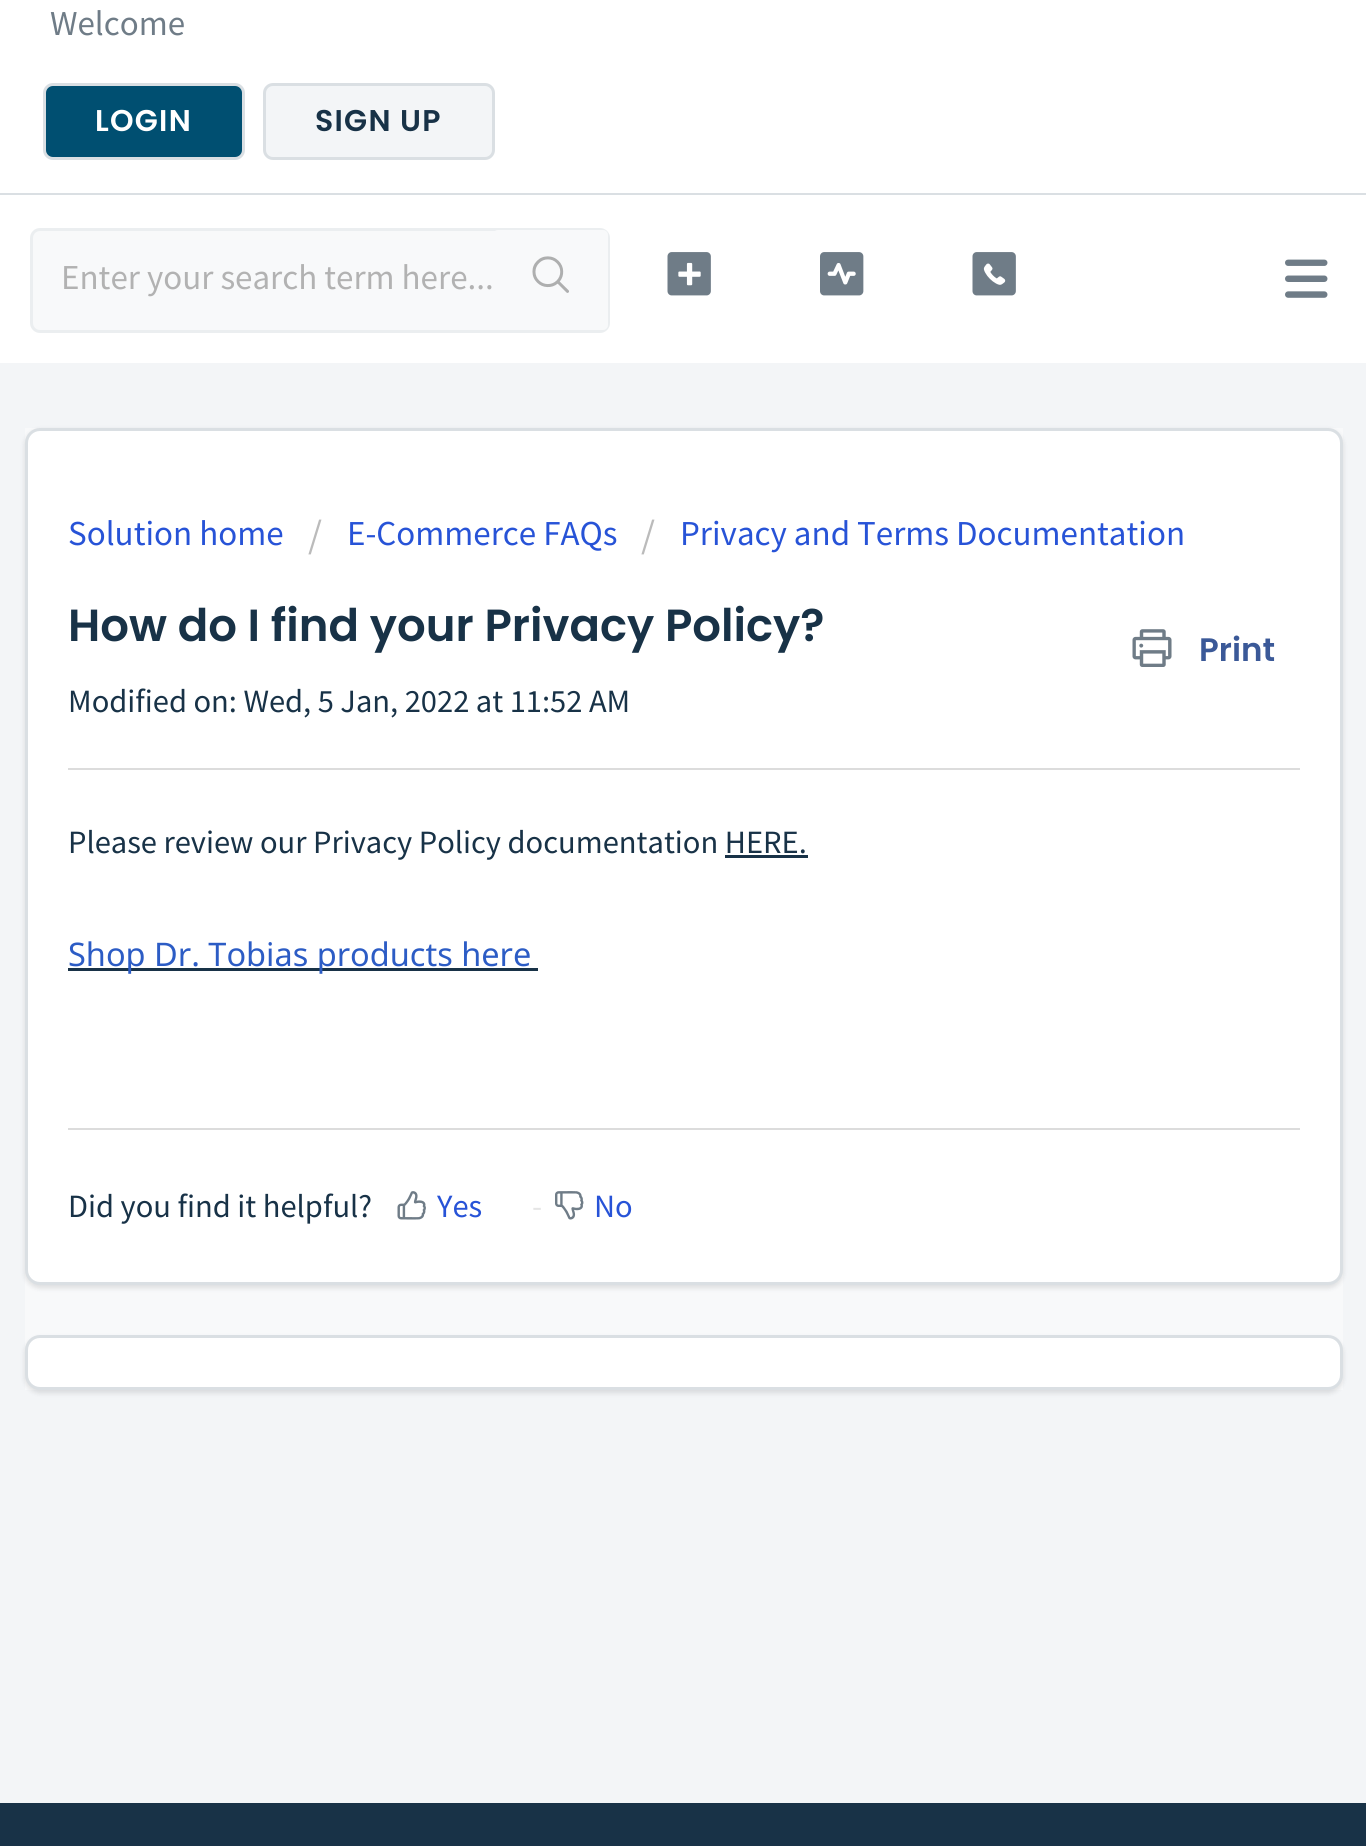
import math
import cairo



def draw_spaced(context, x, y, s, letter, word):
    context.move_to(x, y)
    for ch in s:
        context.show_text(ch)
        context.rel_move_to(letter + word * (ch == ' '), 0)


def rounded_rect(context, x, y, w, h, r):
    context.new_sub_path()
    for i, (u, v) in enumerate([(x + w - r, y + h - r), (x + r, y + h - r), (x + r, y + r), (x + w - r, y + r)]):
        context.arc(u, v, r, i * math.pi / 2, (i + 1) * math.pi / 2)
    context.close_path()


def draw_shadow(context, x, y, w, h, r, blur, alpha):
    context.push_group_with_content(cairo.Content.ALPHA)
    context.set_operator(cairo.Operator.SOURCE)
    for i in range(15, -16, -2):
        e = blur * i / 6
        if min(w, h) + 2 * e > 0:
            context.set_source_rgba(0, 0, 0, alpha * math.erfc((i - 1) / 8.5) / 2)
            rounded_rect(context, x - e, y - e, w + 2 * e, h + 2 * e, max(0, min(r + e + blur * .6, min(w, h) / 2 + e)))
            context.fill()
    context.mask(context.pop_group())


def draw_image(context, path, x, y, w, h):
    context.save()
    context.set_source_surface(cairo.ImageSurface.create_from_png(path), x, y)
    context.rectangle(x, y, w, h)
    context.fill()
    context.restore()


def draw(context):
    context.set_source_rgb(243 / 255, 245 / 255, 247 / 255)
    context.paint()
    context.set_source_rgb(1, 1, 1)
    context.rectangle(0, 0, 1366, 193)
    context.fill()
    context.set_source_rgb(218 / 255, 223 / 255, 227 / 255)
    context.rectangle(0, 193, 1366, 2)
    context.fill()
    context.set_source_rgb(0, 79 / 255, 113 / 255)
    rounded_rect(context, 44.5, 84.5, 199, 74, 8.5)
    context.fill_preserve()
    context.set_source_rgb(218 / 255, 223 / 255, 227 / 255)
    context.set_line_width(3)
    context.stroke()
    context.set_source_rgb(243 / 255, 245 / 255, 247 / 255)
    rounded_rect(context, 264.5, 84.5, 229, 74, 8.5)
    context.fill_preserve()
    context.set_source_rgb(218 / 255, 223 / 255, 227 / 255)
    context.stroke()
    context.set_source_rgb(1, 1, 1)
    context.rectangle(0, 195, 1366, 168)
    context.fill()
    draw_image(context, "images/1.png", 1285, 259, 43, 39)
    context.set_source_rgb(248 / 255, 249 / 255, 250 / 255)
    rounded_rect(context, 31.5, 229.5, 577, 102, 8.5)
    context.fill_preserve()
    context.set_source_rgb(235 / 255, 238 / 255, 240 / 255)
    context.stroke()
    context.set_source_rgb(248 / 255, 249 / 255, 250 / 255)
    rounded_rect(context, 493, 230, 115, 100, 5)
    context.fill()
    draw_image(context, "images/2.png", 532, 256, 37, 37)
    draw_image(context, "images/3.png", 667, 252, 44, 44)
    draw_image(context, "images/4.png", 820, 252, 44, 44)
    draw_image(context, "images/5.png", 972, 252, 44, 44)
    context.rectangle(25, 428, 1318, 962)
    context.fill()
    context.set_source_rgb(63 / 255, 63 / 255, 68 / 255)
    draw_shadow(context, 25, 430, 1318, 858, 15, 2.5, 0.15)
    context.set_source_rgb(1, 1, 1)
    rounded_rect(context, 26.5, 429.5, 1315, 854, 13.5)
    context.fill_preserve()
    context.set_source_rgb(218 / 255, 223 / 255, 227 / 255)
    context.stroke()
    draw_image(context, "images/6.png", 1132, 629, 40, 38)
    context.set_source_rgb(220 / 255, 220 / 255, 220 / 255)
    context.rectangle(68, 768, 1232, 2)
    context.fill()
    context.set_source_rgb(24 / 255, 50 / 255, 71 / 255)
    context.rectangle(725, 855, 83, 3)
    context.fill()
    context.rectangle(68, 968, 470, 3)
    context.fill()
    context.set_source_rgb(220 / 255, 220 / 255, 220 / 255)
    context.rectangle(68, 1128, 1232, 2)
    context.fill()
    draw_image(context, "images/7.png", 397, 1191, 29, 29)
    draw_image(context, "images/8.png", 555, 1191, 29, 29)
    context.set_source_rgb(63 / 255, 63 / 255, 68 / 255)
    draw_shadow(context, 25, 1338, 1318, 55, 15, 2.5, 0.15)
    context.set_source_rgb(1, 1, 1)
    rounded_rect(context, 26.5, 1336.5, 1315, 52, 13.5)
    context.fill_preserve()
    context.set_source_rgb(218 / 255, 223 / 255, 227 / 255)
    context.stroke()
    context.set_source_rgb(24 / 255, 50 / 255, 71 / 255)
    context.rectangle(0, 1803, 1366, 43)
    context.fill()
    context.select_font_face("Source Sans Pro")
    context.set_font_size(35)
    context.set_source_rgb(111 / 255, 124 / 255, 135 / 255)
    context.move_to(50, 35)
    context.show_text("Welcome")
    context.select_font_face("Poppins SemiBold")
    context.set_font_size(30)
    context.set_source_rgb(1, 1, 1)
    draw_spaced(context, 95, 131, "LOGIN", 1.25, 0)
    context.set_source_rgb(24 / 255, 50 / 255, 71 / 255)
    draw_spaced(context, 315, 131, "SIGN UP", 1.25, 0)
    context.select_font_face("Source Sans Pro")
    context.set_font_size(35)
    context.set_source_rgb(178 / 255, 178 / 255, 178 / 255)
    context.move_to(61, 289)
    context.show_text("Enter your search term here...")
    context.set_source_rgb(39 / 255, 83 / 255, 215 / 255)
    context.move_to(68, 545)
    context.show_text("Solution home")
    context.set_font_size(40)
    context.set_source_rgb(187 / 255, 187 / 255, 187 / 255)
    context.move_to(308, 548)
    context.show_text("/")
    context.set_font_size(35)
    context.set_source_rgb(39 / 255, 83 / 255, 215 / 255)
    context.move_to(347, 545)
    context.show_text("E-Commerce FAQs")
    context.set_font_size(40)
    context.set_source_rgb(187 / 255, 187 / 255, 187 / 255)
    context.move_to(641, 548)
    context.show_text("/")
    context.set_font_size(35)
    context.set_source_rgb(39 / 255, 83 / 255, 215 / 255)
    context.move_to(680, 545)
    context.show_text("Privacy and Terms Documentation")
    context.select_font_face("Poppins SemiBold")
    context.set_font_size(45)
    context.set_source_rgb(24 / 255, 50 / 255, 71 / 255)
    context.move_to(68, 641)
    context.show_text("How do I find your Privacy Policy?")
    context.set_font_size(32.5)
    context.set_source_rgb(59 / 255, 89 / 255, 152 / 255)
    context.move_to(1199, 661)
    context.show_text("Print")
    context.select_font_face("Source Sans Pro")
    context.set_source_rgb(24 / 255, 50 / 255, 71 / 255)
    context.move_to(68, 712)
    context.show_text("Modified on: Wed, 5 Jan, 2022 at 11:52 AM")
    context.move_to(68, 853)
    context.show_text("Please review our Privacy Policy documentation HERE.")
    context.select_font_face("Noto Sans")
    context.set_source_rgb(44 / 255, 92 / 255, 197 / 255)
    context.move_to(68, 966)
    context.show_text("Shop Dr. Tobias products here")
    context.select_font_face("Source Sans Pro")
    context.set_source_rgb(24 / 255, 50 / 255, 71 / 255)
    context.move_to(68, 1217)
    context.show_text("Did you find it helpful?")
    context.set_source_rgb(39 / 255, 83 / 255, 215 / 255)
    context.move_to(437, 1217)
    context.show_text("Yes")
    context.set_source_rgb(229 / 255, 229 / 255, 229 / 255)
    context.move_to(532, 1217)
    context.show_text("-")
    context.set_source_rgb(39 / 255, 83 / 255, 215 / 255)
    context.move_to(594, 1217)
    context.show_text("No")


surface = cairo.ImageSurface(cairo.Format.RGB24, 1366, 1846)
context = cairo.Context(surface)
options = cairo.FontOptions()
options.set_hint_metrics(cairo.HintMetrics.OFF)
options.set_hint_style(cairo.HintStyle.NONE)
context.set_font_options(options)
context.set_miter_limit(4)
draw(context)
surface.write_to_png("out.png")
